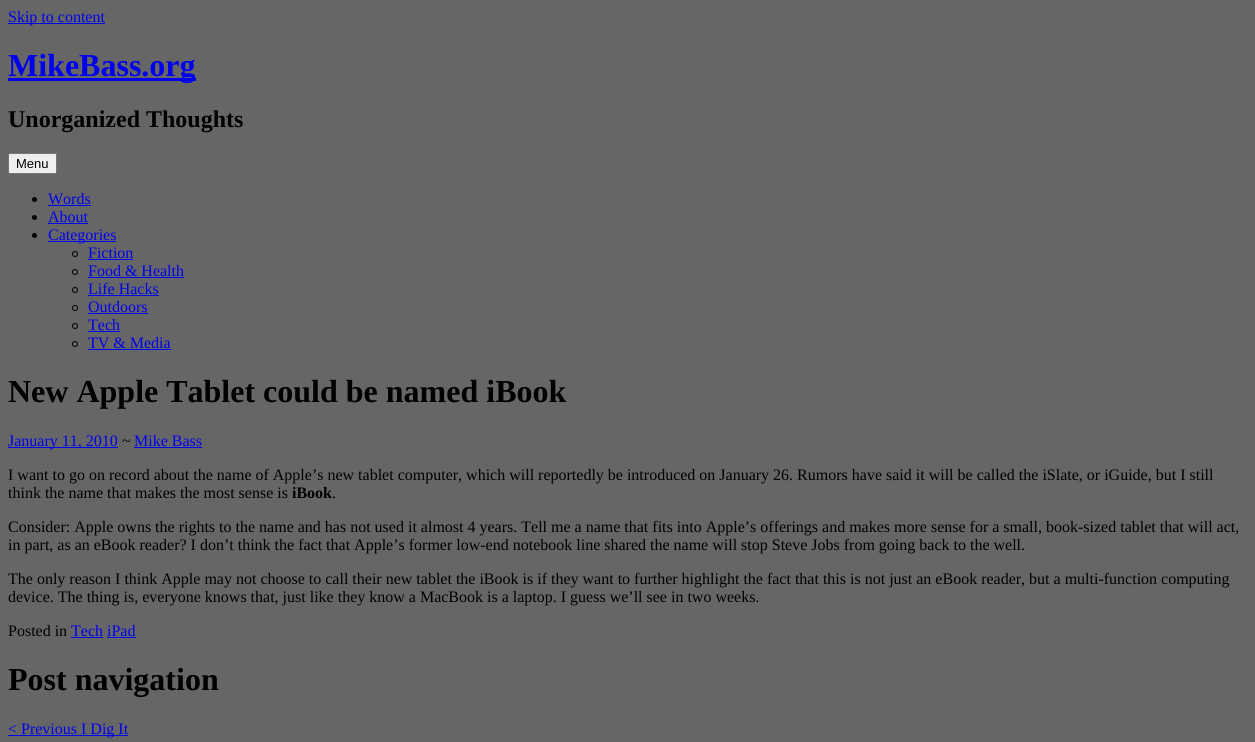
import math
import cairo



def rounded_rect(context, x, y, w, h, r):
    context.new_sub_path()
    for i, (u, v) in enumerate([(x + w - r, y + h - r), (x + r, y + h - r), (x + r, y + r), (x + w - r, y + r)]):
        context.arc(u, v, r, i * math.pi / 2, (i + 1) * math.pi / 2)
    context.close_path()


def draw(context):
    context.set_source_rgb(102 / 255, 102 / 255, 102 / 255)
    context.paint()
    context.set_source_rgb(0, 0, 238 / 255)
    context.rectangle(8, 23, 97, 1)
    context.fill()
    context.rectangle(8, 78, 188, 3)
    context.fill()
    context.set_source_rgb(239 / 255, 239 / 255, 239 / 255)
    rounded_rect(context, 8.5, 153.5, 48, 20, 1.5)
    context.fill_preserve()
    context.set_source_rgb(118 / 255, 118 / 255, 118 / 255)
    context.set_line_width(1)
    context.stroke()
    context.set_source_rgb(0, 0, 0)
    context.arc(34.5, 199.5, 2.5, 0, 2 * math.pi)
    context.fill()
    context.set_source_rgb(0, 0, 238 / 255)
    context.rectangle(48, 205, 43, 1)
    context.fill()
    context.set_source_rgb(0, 0, 0)
    context.arc(34.5, 217.5, 2.5, 0, 2 * math.pi)
    context.fill()
    context.set_source_rgb(0, 0, 238 / 255)
    context.rectangle(48, 223, 40, 1)
    context.fill()
    context.set_source_rgb(0, 0, 0)
    context.arc(34.5, 235.5, 2.5, 0, 2 * math.pi)
    context.fill()
    context.set_source_rgb(0, 0, 238 / 255)
    context.rectangle(48, 241, 68, 1)
    context.fill()
    context.arc(75, 254, 2.5, 0, 2 * math.pi)
    context.set_source_rgb(0, 0, 0)
    context.stroke()
    context.set_source_rgb(0, 0, 238 / 255)
    context.rectangle(88, 259, 45, 1)
    context.fill()
    context.arc(75, 272, 2.5, 0, 2 * math.pi)
    context.set_source_rgb(0, 0, 0)
    context.stroke()
    context.set_source_rgb(0, 0, 238 / 255)
    context.rectangle(88, 277, 96, 1)
    context.fill()
    context.arc(75, 290, 2.5, 0, 2 * math.pi)
    context.set_source_rgb(0, 0, 0)
    context.stroke()
    context.set_source_rgb(0, 0, 238 / 255)
    context.rectangle(88, 295, 71, 1)
    context.fill()
    context.arc(75, 308, 2.5, 0, 2 * math.pi)
    context.set_source_rgb(0, 0, 0)
    context.stroke()
    context.set_source_rgb(0, 0, 238 / 255)
    context.rectangle(88, 313, 60, 1)
    context.fill()
    context.arc(75, 326, 2.5, 0, 2 * math.pi)
    context.set_source_rgb(0, 0, 0)
    context.stroke()
    context.set_source_rgb(0, 0, 238 / 255)
    context.rectangle(88, 331, 32, 1)
    context.fill()
    context.arc(75, 344, 2.5, 0, 2 * math.pi)
    context.set_source_rgb(0, 0, 0)
    context.stroke()
    context.set_source_rgb(0, 0, 238 / 255)
    context.rectangle(88, 349, 83, 1)
    context.fill()
    context.rectangle(8, 447, 110, 1)
    context.fill()
    context.rectangle(134, 447, 68, 1)
    context.fill()
    context.rectangle(71, 637, 32, 1)
    context.fill()
    context.rectangle(107, 637, 29, 1)
    context.fill()
    context.rectangle(8, 735, 120, 1)
    context.fill()
    context.select_font_face("Liberation Serif")
    context.set_font_size(16)
    context.move_to(8, 22)
    context.show_text("Skip to content")
    context.select_font_face("Liberation Serif", cairo.FontSlant.NORMAL, cairo.FontWeight.BOLD)
    context.set_font_size(32)
    context.move_to(8, 76)
    context.show_text("MikeBass.org")
    context.set_font_size(24)
    context.set_source_rgb(0, 0, 0)
    context.move_to(8, 127)
    context.show_text("Unorganized Thoughts")
    context.select_font_face("Liberation Sans")
    context.set_font_size(13)
    context.move_to(16, 168)
    context.show_text("Menu")
    context.select_font_face("Liberation Serif")
    context.set_font_size(16)
    context.set_source_rgb(0, 0, 238 / 255)
    context.move_to(48, 204)
    context.show_text("Words")
    context.move_to(48, 222)
    context.show_text("About")
    context.move_to(48, 240)
    context.show_text("Categories")
    context.move_to(88, 258)
    context.show_text("Fiction")
    context.move_to(88, 276)
    context.show_text("Food & Health")
    context.move_to(88, 294)
    context.show_text("Life Hacks")
    context.move_to(88, 312)
    context.show_text("Outdoors")
    context.move_to(88, 330)
    context.show_text("Tech")
    context.move_to(88, 348)
    context.show_text("TV & Media")
    context.select_font_face("Liberation Serif", cairo.FontSlant.NORMAL, cairo.FontWeight.BOLD)
    context.set_font_size(32)
    context.set_source_rgb(0, 0, 0)
    context.move_to(8, 402)
    context.show_text("New Apple Tablet could be named iBook")
    context.select_font_face("Liberation Serif")
    context.set_font_size(16)
    context.set_source_rgb(0, 0, 238 / 255)
    context.move_to(8, 446)
    context.show_text("January 11, 2010")
    context.set_source_rgb(0, 0, 0)
    context.move_to(122, 446)
    context.show_text("~")
    context.set_source_rgb(0, 0, 238 / 255)
    context.move_to(134, 446)
    context.show_text("Mike Bass")
    context.set_source_rgb(0, 0, 0)
    context.move_to(8, 480)
    context.show_text("I want to go on record about the name of Apple’s new tablet computer, which will reportedly be introduced on January 26. Rumors have said it will be called the iSlate, or iGuide, but I still")
    context.move_to(8, 498)
    context.show_text("think the name that makes the most sense is")
    context.select_font_face("Liberation Serif", cairo.FontSlant.NORMAL, cairo.FontWeight.BOLD)
    context.move_to(292, 498)
    context.show_text("iBook")
    context.select_font_face("Liberation Serif")
    context.move_to(332, 498)
    context.show_text(".")
    context.move_to(8, 532)
    context.show_text("Consider: Apple owns the rights to the name and has not used it almost 4 years. Tell me a name that fits into Apple’s offerings and makes more sense for a small, book-sized tablet that will act,")
    context.move_to(8, 550)
    context.show_text("in part, as an eBook reader? I don’t think the fact that Apple’s former low-end notebook line shared the name will stop Steve Jobs from going back to the well.")
    context.move_to(8, 584)
    context.show_text("The only reason I think Apple may not choose to call their new tablet the iBook is if they want to further highlight the fact that this is not just an eBook reader, but a multi-function computing")
    context.move_to(8, 602)
    context.show_text("device. The thing is, everyone knows that, just like they know a MacBook is a laptop. I guess we’ll see in two weeks.")
    context.move_to(8, 636)
    context.show_text("Posted in")
    context.set_source_rgb(0, 0, 238 / 255)
    context.move_to(71, 636)
    context.show_text("Tech iPad")
    context.select_font_face("Liberation Serif", cairo.FontSlant.NORMAL, cairo.FontWeight.BOLD)
    context.set_font_size(32)
    context.set_source_rgb(0, 0, 0)
    context.move_to(8, 690)
    context.show_text("Post navigation")
    context.select_font_face("Liberation Serif")
    context.set_font_size(16)
    context.set_source_rgb(0, 0, 238 / 255)
    context.move_to(8, 734)
    context.show_text("< Previous I Dig It")


surface = cairo.ImageSurface(cairo.Format.RGB24, 1255, 742)
context = cairo.Context(surface)
options = cairo.FontOptions()
options.set_hint_metrics(cairo.HintMetrics.OFF)
options.set_hint_style(cairo.HintStyle.NONE)
context.set_font_options(options)
context.set_miter_limit(4)
draw(context)
surface.write_to_png("out.png")
